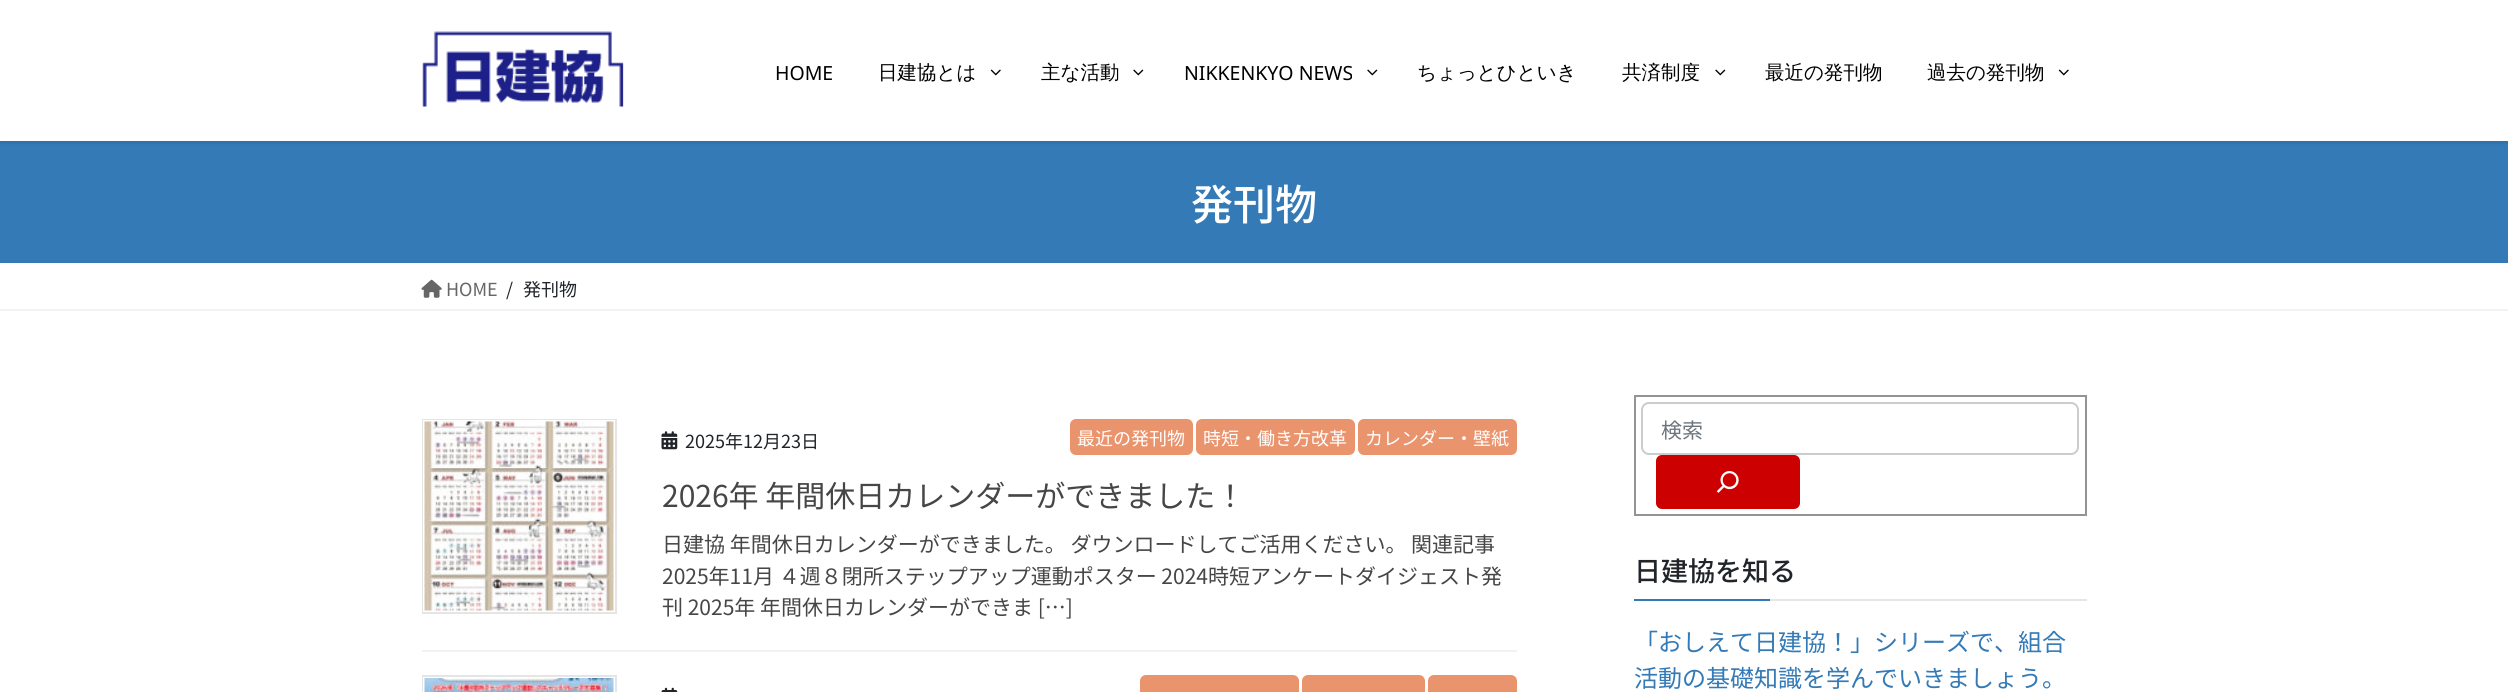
import math
import cairo



def rounded_rect(context, x, y, w, h, r):
    context.new_sub_path()
    for i, (u, v) in enumerate([(x + w - r, y + h - r), (x + r, y + h - r), (x + r, y + r), (x + w - r, y + r)]):
        context.arc(u, v, r, i * math.pi / 2, (i + 1) * math.pi / 2)
    context.close_path()


def draw_shadow(context, x, y, w, h, r, blur, alpha):
    context.push_group_with_content(cairo.Content.ALPHA)
    context.set_operator(cairo.Operator.SOURCE)
    for i in range(15, -16, -2):
        e = blur * i / 6
        if min(w, h) + 2 * e > 0:
            context.set_source_rgba(0, 0, 0, alpha * math.erfc((i - 1) / 8.5) / 2)
            rounded_rect(context, x - e, y - e, w + 2 * e, h + 2 * e, max(0, min(r + e + blur * .6, min(w, h) / 2 + e)))
            context.fill()
    context.mask(context.pop_group())


def draw_image(context, path, x, y, w, h):
    context.save()
    context.set_source_surface(cairo.ImageSurface.create_from_png(path), x, y)
    context.rectangle(x, y, w, h)
    context.fill()
    context.restore()


def draw(context):
    context.set_source_rgb(1, 1, 1)
    context.paint()
    context.set_source_rgb(51 / 255, 122 / 255, 183 / 255)
    context.rectangle(0, 141, 2508, 122)
    context.fill()
    context.save()
    context.rectangle(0, 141, 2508, 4)
    context.clip()
    context.set_source_rgb(0, 0, 0)
    draw_shadow(context, 0, 2, 2508, 141, 0, 2, 0.1)
    context.restore()
    draw_image(context, "images/1.png", 422, 31, 202, 76)
    draw_image(context, "images/2.png", 990, 69, 11, 7)
    draw_image(context, "images/3.png", 1133, 69, 11, 7)
    draw_image(context, "images/3.png", 1367, 69, 11, 7)
    draw_image(context, "images/3.png", 1715, 69, 11, 7)
    draw_image(context, "images/2.png", 2058, 69, 11, 7)
    context.set_source_rgb(242 / 255, 242 / 255, 242 / 255)
    context.rectangle(0, 309, 2508, 2)
    context.fill()
    draw_image(context, "images/4.png", 421, 279, 21, 19)
    context.rectangle(422, 650, 1095, 2)
    context.fill()
    context.rectangle(423, 420, 193, 193)
    context.set_source_rgb(229 / 255, 229 / 255, 229 / 255)
    context.stroke()
    context.rectangle(424, 421, 190, 190)
    context.set_source_rgb(1, 1, 1)
    context.stroke()
    draw_image(context, "images/5.png", 424, 421, 190, 190)
    draw_image(context, "images/6.png", 661, 431, 17, 19)
    context.set_source_rgb(234 / 255, 148 / 255, 110 / 255)
    rounded_rect(context, 1070, 419, 123, 36, 6)
    context.fill()
    rounded_rect(context, 1196, 419, 159, 36, 6)
    context.fill()
    rounded_rect(context, 1358, 419, 159, 36, 6)
    context.fill()
    context.rectangle(423, 676, 193, 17)
    context.set_source_rgb(229 / 255, 229 / 255, 229 / 255)
    context.stroke()
    context.rectangle(424, 678, 190, 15)
    context.set_source_rgb(1, 1, 1)
    context.stroke()
    draw_image(context, "images/7.png", 424, 678, 190, 14)
    draw_image(context, "images/8.png", 661, 687, 17, 5)
    context.set_source_rgb(234 / 255, 148 / 255, 110 / 255)
    rounded_rect(context, 1140, 675, 159, 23, 6)
    context.fill()
    rounded_rect(context, 1302, 675, 123, 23, 6)
    context.fill()
    rounded_rect(context, 1428, 675, 89, 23, 6)
    context.fill()
    context.rectangle(1635, 396, 451, 119)
    context.set_source_rgb(148 / 255, 148 / 255, 148 / 255)
    context.stroke()
    rounded_rect(context, 1642, 403, 436, 51, 7)
    context.set_source_rgb(204 / 255, 204 / 255, 204 / 255)
    context.stroke()
    context.set_source_rgb(204 / 255, 0, 0)
    rounded_rect(context, 1656, 455, 144, 54, 6)
    context.fill()
    draw_image(context, "images/9.png", 1716, 471, 23, 22)
    context.set_source_rgb(230 / 255, 230 / 255, 230 / 255)
    context.rectangle(1770, 599, 317, 2)
    context.fill()
    context.set_source_rgb(51 / 255, 122 / 255, 183 / 255)
    context.rectangle(1634, 599, 136, 2)
    context.fill()
    context.select_font_face("Noto Sans")
    context.set_font_size(19.5)
    context.set_source_rgb(0, 0, 0)
    context.move_to(775, 80)
    context.show_text("HOME")
    context.select_font_face("WenQuanYi Zen Hei Medium")
    context.move_to(878, 79)
    context.show_text("日建協とは")
    context.move_to(1041, 79)
    context.show_text("主な活動")
    context.select_font_face("Noto Sans")
    context.move_to(1184, 80)
    context.show_text("NIKKENKYO NEWS")
    context.select_font_face("WenQuanYi Zen Hei Medium")
    context.move_to(1417, 79)
    context.show_text("ちょっとひといき")
    context.move_to(1622, 79)
    context.show_text("共済制度")
    context.move_to(1765, 79)
    context.show_text("最近の発刊物")
    context.move_to(1927, 79)
    context.show_text("過去の発刊物")
    context.select_font_face("Noto Sans JP Medium")
    context.set_font_size(42)
    context.set_source_rgb(1, 1, 1)
    context.move_to(1191, 220)
    context.show_text("発刊物")
    context.select_font_face("Noto Sans JP")
    context.set_font_size(18)
    context.set_source_rgb(102 / 255, 102 / 255, 102 / 255)
    context.move_to(446, 296)
    context.show_text("HOME")
    context.set_source_rgb(33 / 255, 37 / 255, 41 / 255)
    context.move_to(506, 296)
    context.show_text("/")
    context.move_to(523, 296)
    context.show_text("発刊物")
    context.move_to(685, 448)
    context.show_text("2025年12月23日")
    context.set_source_rgb(1, 1, 1)
    context.move_to(1077, 445)
    context.show_text("最近の発刊物")
    context.move_to(1203, 445)
    context.show_text("時短・働き方改革")
    context.move_to(1365, 445)
    context.show_text("カレンダー・壁紙")
    context.set_font_size(30)
    context.set_source_rgb(70 / 255, 70 / 255, 70 / 255)
    context.move_to(662, 507)
    context.show_text("2026年 年間休日カレンダーができました！")
    context.set_font_size(21)
    context.move_to(662, 552)
    context.show_text("日建協 年間休日カレンダーができました。 ダウンロードしてご活用ください。 関連記事")
    context.move_to(662, 584)
    context.show_text("2025年11月 ４週８閉所ステップアップ運動ポスター 2024時短アンケートダイジェスト発")
    context.move_to(662, 615)
    context.show_text("刊 2025年 年間休日カレンダーができま […]")
    context.set_source_rgb(108 / 255, 117 / 255, 125 / 255)
    context.move_to(1661, 438)
    context.show_text("検索")
    context.select_font_face("Noto Sans JP Medium")
    context.set_font_size(27)
    context.set_source_rgb(33 / 255, 37 / 255, 41 / 255)
    context.move_to(1634, 581)
    context.show_text("日建協を知る")
    context.select_font_face("Noto Sans JP")
    context.set_font_size(24)
    context.set_source_rgb(51 / 255, 122 / 255, 183 / 255)
    context.move_to(1634, 651)
    context.show_text("「おしえて日建協！」シリーズで、組合")
    context.move_to(1634, 687)
    context.show_text("活動の基礎知識を学んでいきましょう。")


surface = cairo.ImageSurface(cairo.Format.RGB24, 2508, 692)
context = cairo.Context(surface)
options = cairo.FontOptions()
options.set_hint_metrics(cairo.HintMetrics.OFF)
options.set_hint_style(cairo.HintStyle.NONE)
context.set_font_options(options)
context.set_miter_limit(4)
draw(context)
surface.write_to_png("out.png")
